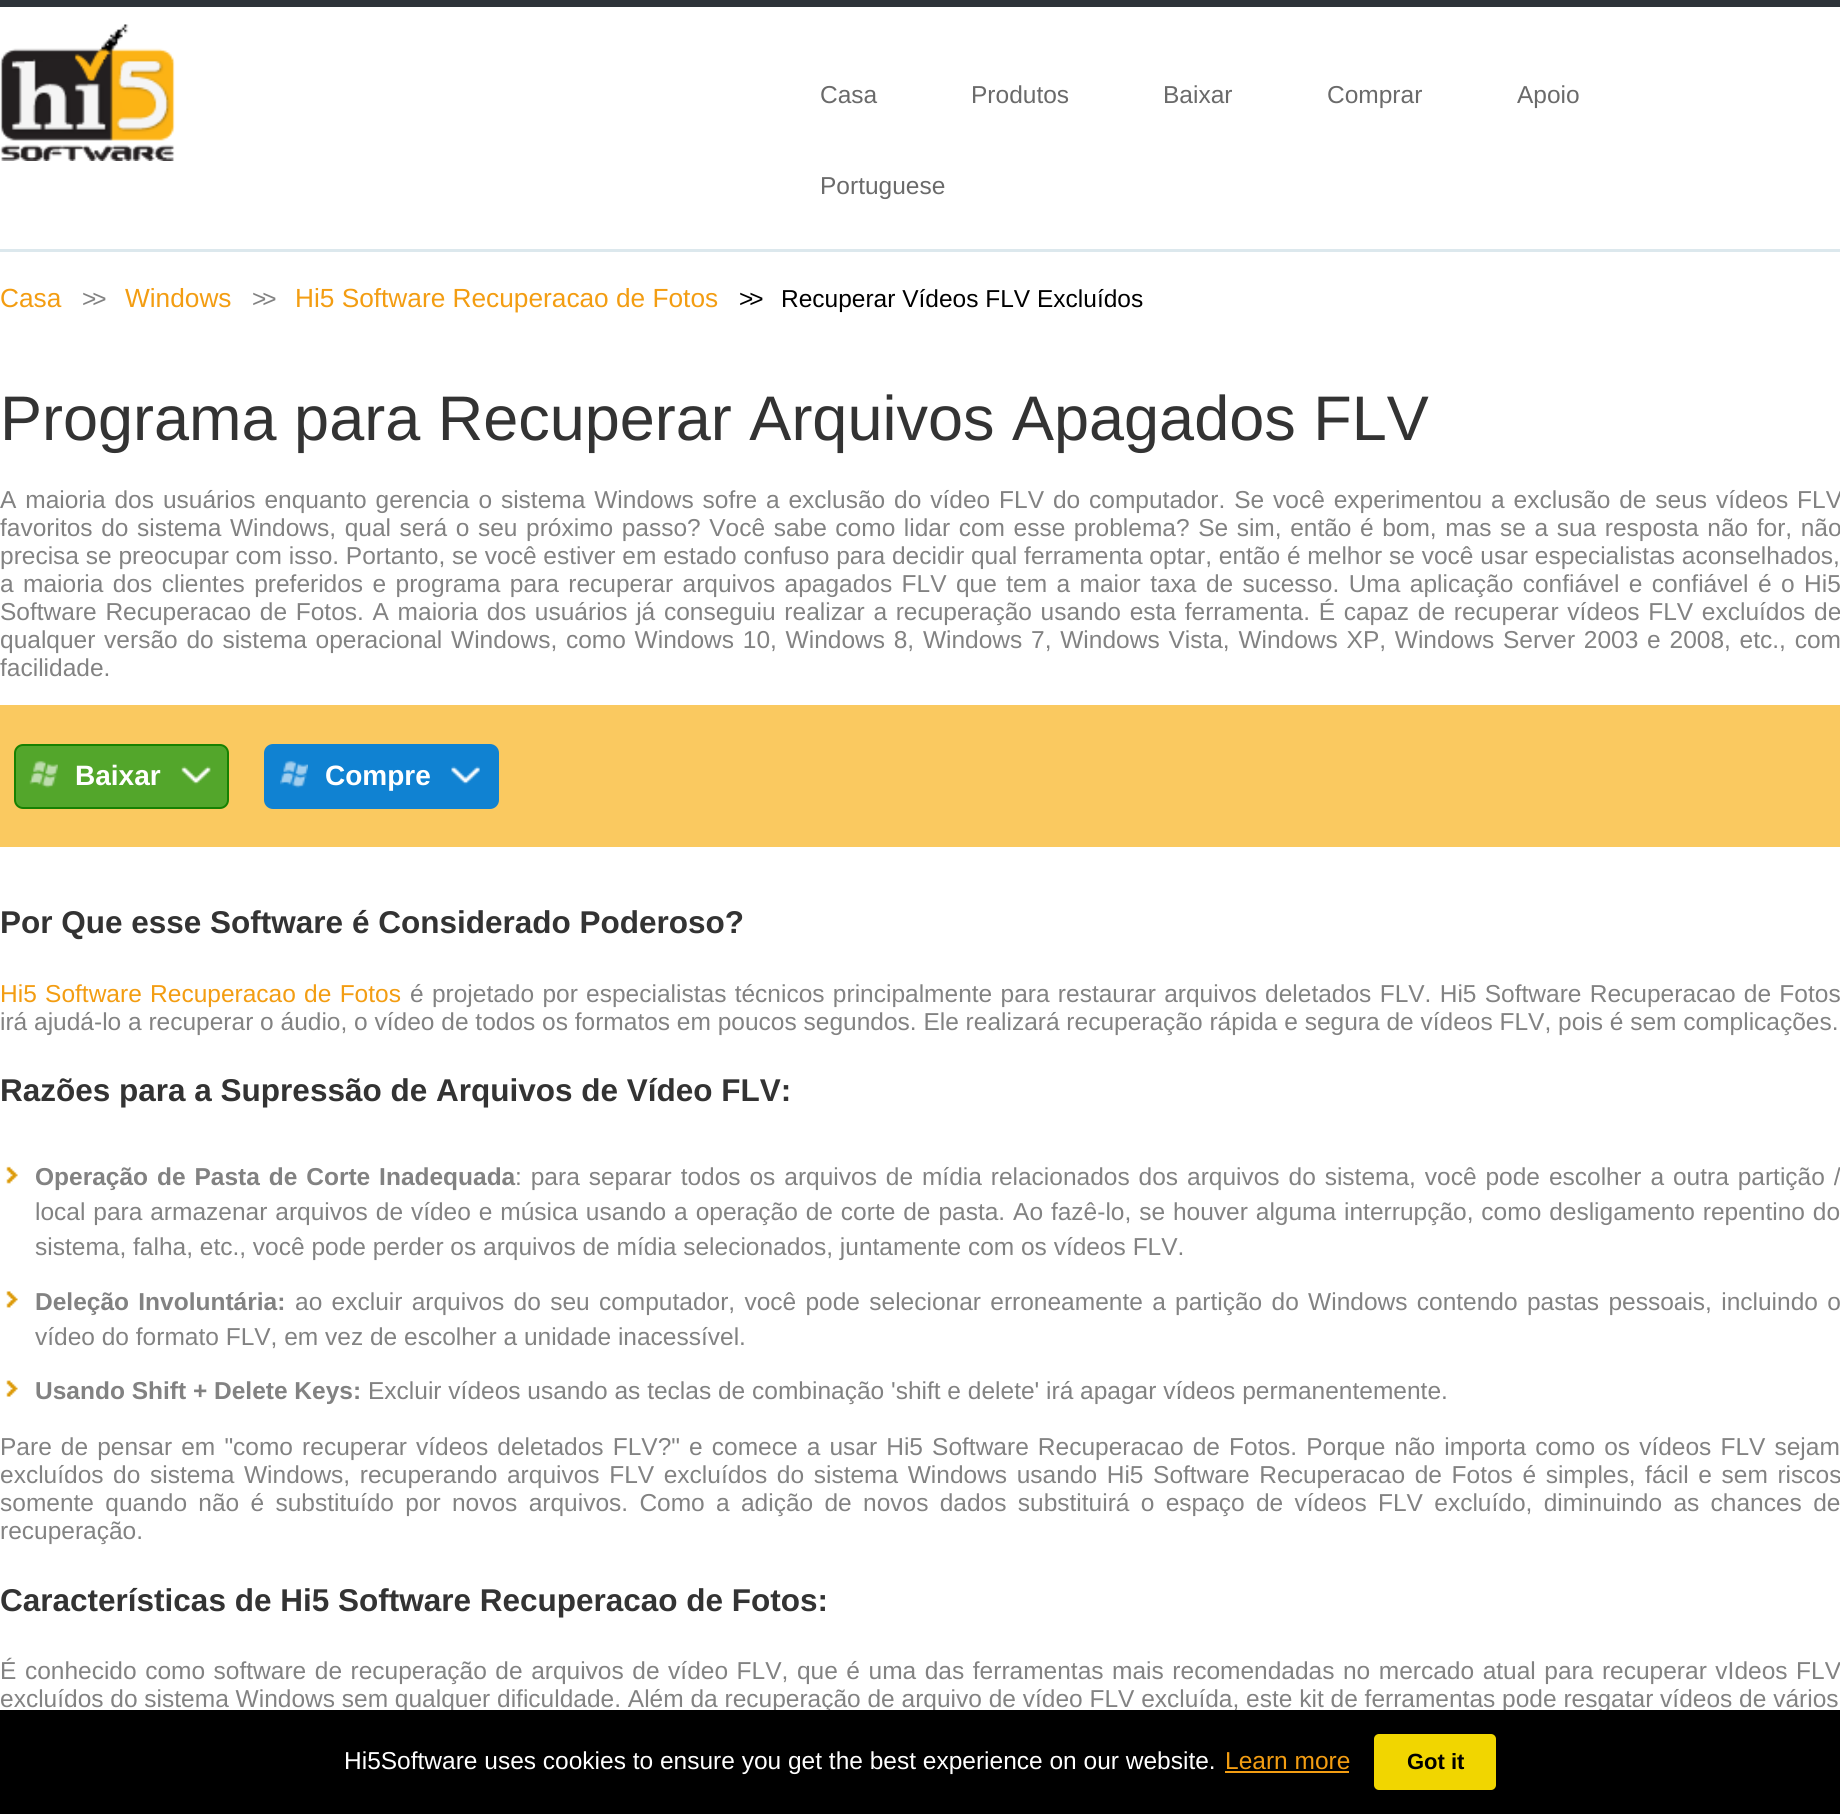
import math
import cairo



def draw_spaced(context, x, y, s, letter, word):
    context.move_to(x, y)
    for ch in s:
        context.show_text(ch)
        context.rel_move_to(letter + word * (ch == ' '), 0)


def rounded_rect(context, x, y, w, h, r):
    context.new_sub_path()
    for i, (u, v) in enumerate([(x + w - r, y + h - r), (x + r, y + h - r), (x + r, y + r), (x + w - r, y + r)]):
        context.arc(u, v, r, i * math.pi / 2, (i + 1) * math.pi / 2)
    context.close_path()


def draw_image(context, path, x, y, w, h):
    context.save()
    context.set_source_surface(cairo.ImageSurface.create_from_png(path), x, y)
    context.rectangle(x, y, w, h)
    context.fill()
    context.restore()


def draw(context):
    context.set_source_rgb(1, 1, 1)
    context.paint()
    context.set_source_rgb(45 / 255, 51 / 255, 57 / 255)
    context.rectangle(0, 0, 1840, 7)
    context.fill()
    context.set_source_rgb(220 / 255, 232 / 255, 237 / 255)
    context.rectangle(0, 249, 1840, 3)
    context.fill()
    draw_image(context, "images/1.png", 0, 24, 175, 137)
    context.set_source_rgb(250 / 255, 201 / 255, 96 / 255)
    context.rectangle(0, 705, 1840, 142)
    context.fill()
    context.set_source_rgb(83 / 255, 166 / 255, 43 / 255)
    rounded_rect(context, 15, 745, 213, 63, 8)
    context.fill_preserve()
    context.set_source_rgb(23 / 255, 129 / 255, 2 / 255)
    context.stroke()
    draw_image(context, "images/2.png", 29, 760, 29, 28)
    draw_image(context, "images/3.png", 181, 766, 30, 19)
    context.set_source_rgb(16 / 255, 130 / 255, 210 / 255)
    rounded_rect(context, 265, 745, 233, 63, 8)
    context.fill_preserve()
    context.stroke()
    draw_image(context, "images/4.png", 280, 760, 28, 28)
    draw_image(context, "images/5.png", 451, 766, 29, 19)
    draw_image(context, "images/6.png", 6, 1166, 12, 18)
    draw_image(context, "images/7.png", 6, 1291, 12, 17)
    draw_image(context, "images/8.png", 6, 1380, 12, 17)
    context.select_font_face("Liberation Sans")
    context.set_font_size(24.5)
    context.set_source_rgb(106 / 255, 106 / 255, 106 / 255)
    context.move_to(820, 103)
    context.show_text("Casa")
    context.move_to(971, 103)
    context.show_text("Produtos")
    context.move_to(1163, 103)
    context.show_text("Baixar")
    context.move_to(1327, 103)
    context.show_text("Comprar")
    context.move_to(1517, 103)
    context.show_text("Apoio")
    context.move_to(820, 194)
    context.show_text("Portuguese")
    context.set_font_size(26.25)
    context.set_source_rgb(243 / 255, 157 / 255, 18 / 255)
    context.move_to(0, 307)
    context.show_text("Casa")
    context.set_font_size(24.5)
    context.set_source_rgb(130 / 255, 130 / 255, 130 / 255)
    draw_spaced(context, 82, 307, ">>", -4, 0)
    context.set_font_size(26.25)
    context.set_source_rgb(243 / 255, 157 / 255, 18 / 255)
    context.move_to(125, 307)
    context.show_text("Windows")
    context.set_font_size(24.5)
    context.set_source_rgb(130 / 255, 130 / 255, 130 / 255)
    draw_spaced(context, 252, 307, ">>", -4, 0)
    context.set_font_size(26.25)
    context.set_source_rgb(243 / 255, 157 / 255, 18 / 255)
    context.move_to(295, 307)
    context.show_text("Hi5 Software Recuperacao de Fotos")
    context.set_font_size(24.5)
    context.set_source_rgb(0, 0, 0)
    draw_spaced(context, 739, 307, ">>", -4, 0)
    context.move_to(781, 307)
    context.show_text("Recuperar Vídeos FLV Excluídos")
    context.set_font_size(63)
    context.set_source_rgb(51 / 255, 51 / 255, 51 / 255)
    context.move_to(0, 440)
    context.show_text("Programa para Recuperar Arquivos Apagados FLV")
    context.set_font_size(24.5)
    context.set_source_rgb(130 / 255, 130 / 255, 130 / 255)
    draw_spaced(context, 0, 508, "A maioria dos usuários enquanto gerencia o sistema Windows sofre a exclusão do vídeo FLV do computador. Se você experimentou a exclusão de seus vídeos FLV", 0, 2.1)
    draw_spaced(context, 0, 536, "favoritos do sistema Windows, qual será o seu próximo passo? Você sabe como lidar com esse problema? Se sim, então é bom, mas se a sua resposta não for, não", 0, 1.75)
    context.move_to(0, 564)
    context.show_text("precisa se preocupar com isso. Portanto, se você estiver em estado confuso para decidir qual ferramenta optar, então é melhor se você usar especialistas aconselhados,")
    draw_spaced(context, 0, 592, "a maioria dos clientes preferidos e programa para recuperar arquivos apagados FLV que tem a maior taxa de sucesso. Uma aplicação confiável e confiável é o Hi5", 0, 2.6)
    draw_spaced(context, 0, 620, "Software Recuperacao de Fotos. A maioria dos usuários já conseguiu realizar a recuperação usando esta ferramenta. É capaz de recuperar vídeos FLV excluídos de", 0, 1.9)
    draw_spaced(context, 0, 648, "qualquer versão do sistema operacional Windows, como Windows 10, Windows 8, Windows 7, Windows Vista, Windows XP, Windows Server 2003 e 2008, etc., com", 0, 1.95)
    context.move_to(0, 676)
    context.show_text("facilidade.")
    context.select_font_face("Liberation Sans", cairo.FontSlant.NORMAL, cairo.FontWeight.BOLD)
    context.set_font_size(28)
    context.set_source_rgb(1, 1, 1)
    context.move_to(75, 785)
    context.show_text("Baixar")
    context.move_to(325, 785)
    context.show_text("Compre")
    context.set_font_size(31.5)
    context.set_source_rgb(51 / 255, 51 / 255, 51 / 255)
    context.move_to(0, 933)
    context.show_text("Por Que esse Software é Considerado Poderoso?")
    context.select_font_face("Liberation Sans")
    context.set_font_size(24.5)
    context.set_source_rgb(243 / 255, 157 / 255, 18 / 255)
    draw_spaced(context, 0, 1002, "Hi5 Software Recuperacao de Fotos", 0, 1.5)
    context.set_source_rgb(130 / 255, 130 / 255, 130 / 255)
    draw_spaced(context, 410, 1002, "é projetado por especialistas técnicos principalmente para restaurar arquivos deletados FLV. Hi5 Software Recuperacao de Fotos", 0, 1.5)
    context.move_to(0, 1030)
    context.show_text("irá ajudá-lo a recuperar o áudio, o vídeo de todos os formatos em poucos segundos. Ele realizará recuperação rápida e segura de vídeos FLV, pois é sem complicações.")
    context.select_font_face("Liberation Sans", cairo.FontSlant.NORMAL, cairo.FontWeight.BOLD)
    context.set_font_size(31.5)
    context.set_source_rgb(51 / 255, 51 / 255, 51 / 255)
    context.move_to(0, 1101)
    context.show_text("Razões para a Supressão de Arquivos de Vídeo FLV:")
    context.set_font_size(24.5)
    context.set_source_rgb(130 / 255, 130 / 255, 130 / 255)
    draw_spaced(context, 35, 1185, "Operação de Pasta de Corte Inadequada", 0, 2.1)
    context.select_font_face("Liberation Sans")
    draw_spaced(context, 515, 1185, ": para separar todos os arquivos de mídia relacionados dos arquivos do sistema, você pode escolher a outra partição /", 0, 2.1)
    draw_spaced(context, 35, 1220, "local para armazenar arquivos de vídeo e música usando a operação de corte de pasta. Ao fazê-lo, se houver alguma interrupção, como desligamento repentino do", 0, 1.1)
    context.move_to(35, 1255)
    context.show_text("sistema, falha, etc., você pode perder os arquivos de mídia selecionados, juntamente com os vídeos FLV.")
    context.select_font_face("Liberation Sans", cairo.FontSlant.NORMAL, cairo.FontWeight.BOLD)
    draw_spaced(context, 35, 1310, "Deleção Involuntária:", 0, 2.5)
    context.select_font_face("Liberation Sans")
    draw_spaced(context, 295, 1310, "ao excluir arquivos do seu computador, você pode selecionar erroneamente a partição do Windows contendo pastas pessoais, incluindo o", 0, 2.5)
    context.move_to(35, 1345)
    context.show_text("vídeo do formato FLV, em vez de escolher a unidade inacessível.")
    context.select_font_face("Liberation Sans", cairo.FontSlant.NORMAL, cairo.FontWeight.BOLD)
    context.move_to(35, 1399)
    context.show_text("Usando Shift + Delete Keys:")
    context.select_font_face("Liberation Sans")
    context.move_to(368, 1399)
    context.show_text("Excluir vídeos usando as teclas de combinação 'shift e delete' irá apagar vídeos permanentemente.")
    draw_spaced(context, 0, 1455, "Pare de pensar em \"como recuperar vídeos deletados FLV?\" e comece a usar Hi5 Software Recuperacao de Fotos. Porque não importa como os vídeos FLV sejam", 0, 2.3)
    draw_spaced(context, 0, 1483, "excluídos do sistema Windows, recuperando arquivos FLV excluídos do sistema Windows usando Hi5 Software Recuperacao de Fotos é simples, fácil e sem riscos", 0, 2.8)
    draw_spaced(context, 0, 1511, "somente quando não é substituído por novos arquivos. Como a adição de novos dados substituirá o espaço de vídeos FLV excluído, diminuindo as chances de", 0, 4.5)
    context.move_to(0, 1539)
    context.show_text("recuperação.")
    context.select_font_face("Liberation Sans", cairo.FontSlant.NORMAL, cairo.FontWeight.BOLD)
    context.set_font_size(31.5)
    context.set_source_rgb(51 / 255, 51 / 255, 51 / 255)
    context.move_to(0, 1611)
    context.show_text("Características de Hi5 Software Recuperacao de Fotos:")
    context.select_font_face("Liberation Sans")
    context.set_font_size(24.5)
    context.set_source_rgb(130 / 255, 130 / 255, 130 / 255)
    draw_spaced(context, 0, 1679, "É conhecido como software de recuperação de arquivos de vídeo FLV, que é uma das ferramentas mais recomendadas no mercado atual para recuperar vIdeos FLV", 0, 1.75)
    context.move_to(0, 1707)
    context.show_text("excluídos do sistema Windows sem qualquer dificuldade. Além da recuperação de arquivo de vídeo FLV excluída, este kit de ferramentas pode resgatar vídeos de vários")
    context.set_source_rgb(0, 0, 0)
    context.rectangle(0, 1710, 1840, 104)
    context.fill()
    context.set_source_rgb(1, 1, 1)
    context.move_to(344, 1769)
    context.show_text("Hi5Software uses cookies to ensure you get the best experience on our website.")
    context.set_source_rgb(243 / 255, 157 / 255, 18 / 255)
    context.move_to(1225, 1769)
    context.show_text("Learn more")
    context.rectangle(1225, 1771, 124, 2)
    context.fill()
    context.set_source_rgb(241 / 255, 214 / 255, 0)
    rounded_rect(context, 1374, 1734, 122, 56, 5)
    context.fill()
    context.select_font_face("Liberation Sans", cairo.FontSlant.NORMAL, cairo.FontWeight.BOLD)
    context.set_font_size(22)
    context.set_source_rgb(0, 0, 0)
    context.move_to(1407, 1769)
    context.show_text("Got it")


surface = cairo.ImageSurface(cairo.Format.RGB24, 1840, 1814)
context = cairo.Context(surface)
options = cairo.FontOptions()
options.set_hint_metrics(cairo.HintMetrics.OFF)
options.set_hint_style(cairo.HintStyle.NONE)
context.set_font_options(options)
context.set_miter_limit(4)
draw(context)
surface.write_to_png("out.png")
